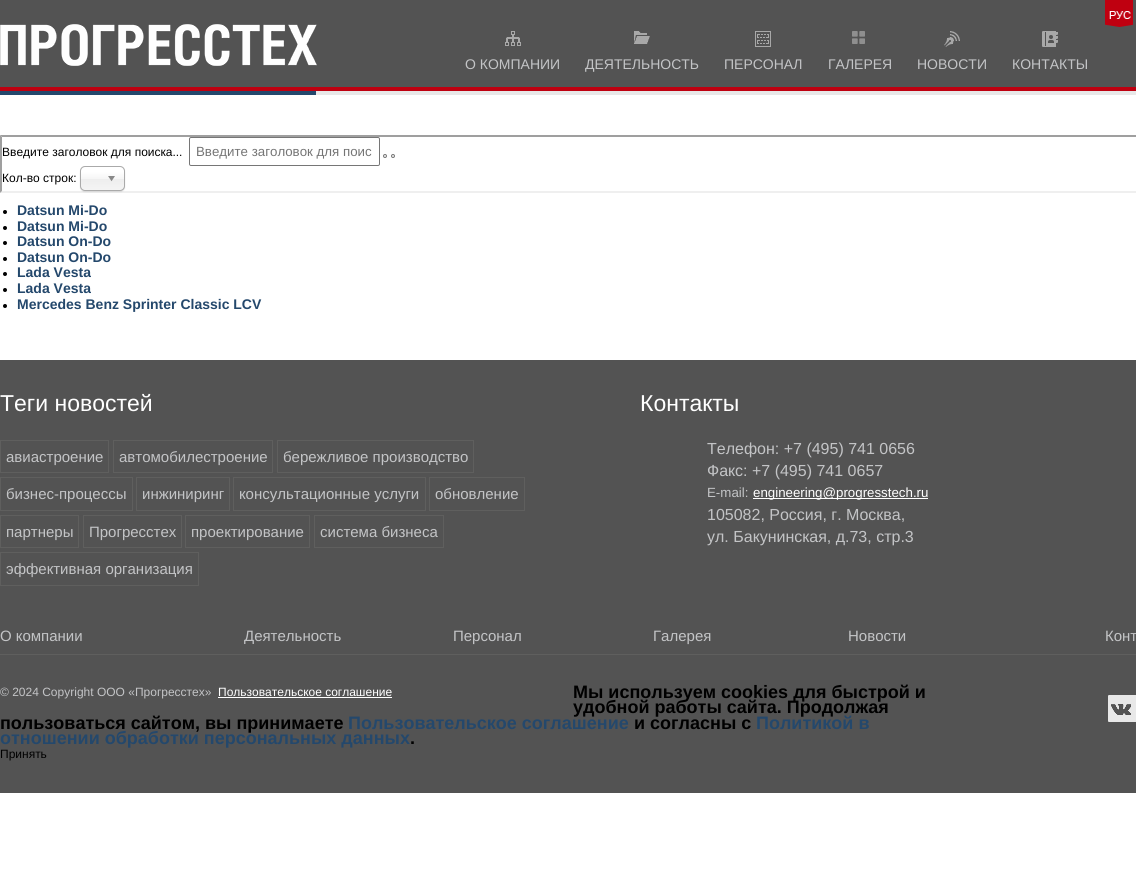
import math
import cairo



def rounded_rect(context, x, y, w, h, r):
    context.new_sub_path()
    for i, (u, v) in enumerate([(x + w - r, y + h - r), (x + r, y + h - r), (x + r, y + r), (x + w - r, y + r)]):
        context.arc(u, v, r, i * math.pi / 2, (i + 1) * math.pi / 2)
    context.close_path()


def draw_shadow(context, x, y, w, h, r, blur, alpha):
    context.push_group_with_content(cairo.Content.ALPHA)
    context.set_operator(cairo.Operator.SOURCE)
    for i in range(15, -16, -2):
        e = blur * i / 6
        if min(w, h) + 2 * e > 0:
            context.set_source_rgba(0, 0, 0, alpha * math.erfc((i - 1) / 8.5) / 2)
            rounded_rect(context, x - e, y - e, w + 2 * e, h + 2 * e, max(0, min(r + e + blur * .6, min(w, h) / 2 + e)))
            context.fill()
    context.mask(context.pop_group())


def draw_image(context, path, x, y, w, h):
    context.save()
    context.set_source_surface(cairo.ImageSurface.create_from_png(path), x, y)
    context.rectangle(x, y, w, h)
    context.fill()
    context.restore()


def draw(context):
    context.set_source_rgb(1, 1, 1)
    context.paint()
    context.set_source_rgb(83 / 255, 83 / 255, 83 / 255)
    context.rectangle(0, 0, 1136, 87)
    context.fill()
    context.set_source_rgb(191 / 255, 0, 16 / 255)
    context.rectangle(0, 87, 1136, 4)
    context.fill()
    draw_image(context, "images/1.png", 1105, 0, 28, 27)
    draw_image(context, "images/2.png", 0, 24, 317, 42)
    draw_image(context, "images/3.png", 505, 31, 16, 15)
    draw_image(context, "images/4.png", 634, 31, 16, 13)
    draw_image(context, "images/5.png", 755, 31, 16, 16)
    draw_image(context, "images/6.png", 852, 31, 13, 13)
    draw_image(context, "images/7.png", 944, 31, 16, 16)
    draw_image(context, "images/8.png", 1042, 31, 16, 16)
    context.set_source_rgb(36 / 255, 72 / 255, 108 / 255)
    context.rectangle(0, 91, 316, 4)
    context.fill()
    context.set_source_rgb(232 / 255, 232 / 255, 232 / 255)
    context.rectangle(316, 91, 820, 4)
    context.fill()
    context.set_source_rgb(159 / 255, 159 / 255, 159 / 255)
    context.new_path()
    context.move_to(0, 135)
    context.line_to(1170, 135)
    context.line_to(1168, 137)
    context.line_to(2, 137)
    context.close_path()
    context.fill()
    context.set_source_rgb(239 / 255, 239 / 255, 239 / 255)
    context.new_path()
    context.move_to(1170, 193)
    context.line_to(0, 193)
    context.line_to(2, 191)
    context.line_to(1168, 191)
    context.close_path()
    context.fill()
    context.set_source_rgb(159 / 255, 159 / 255, 159 / 255)
    context.new_path()
    context.move_to(0, 193)
    context.line_to(0, 135)
    context.line_to(2, 137)
    context.line_to(2, 191)
    context.close_path()
    context.fill()
    rounded_rect(context, 189.5, 137.5, 190, 28, 1.5)
    context.set_source_rgb(118 / 255, 118 / 255, 118 / 255)
    context.set_line_width(1)
    context.stroke()
    context.set_source_rgb(239 / 255, 239 / 255, 239 / 255)
    context.arc(385, 156, 1.5, 0, 2 * math.pi)
    context.fill_preserve()
    context.set_source_rgb(118 / 255, 118 / 255, 118 / 255)
    context.stroke()
    context.set_source_rgb(239 / 255, 239 / 255, 239 / 255)
    context.arc(393, 156, 1.5, 0, 2 * math.pi)
    context.fill_preserve()
    context.set_source_rgb(118 / 255, 118 / 255, 118 / 255)
    context.stroke()
    context.set_source_rgb(0, 0, 0)
    draw_shadow(context, 80, 167, 45, 25, 5, 0.5, 0.1)
    gradient = cairo.LinearGradient(103, 167, 103, 190)
    gradient.add_color_stop_rgba(0.2, 1, 1, 1, 1)
    gradient.add_color_stop_rgba(0.5, 246 / 255, 246 / 255, 246 / 255, 1)
    gradient.add_color_stop_rgba(0.52, 238 / 255, 238 / 255, 238 / 255, 1)
    gradient.add_color_stop_rgba(1, 244 / 255, 244 / 255, 244 / 255, 1)
    context.set_source(gradient)
    rounded_rect(context, 81, 167, 43, 23, 4)
    context.fill()
    rounded_rect(context, 80.5, 166.5, 44, 24, 4.5)
    context.set_source_rgb(170 / 255, 170 / 255, 170 / 255)
    context.stroke()
    draw_image(context, "images/9.png", 108, 176, 7, 6)
    context.set_source_rgb(0, 0, 0)
    context.arc(5, 212, 2, 0, 2 * math.pi)
    context.fill()
    context.arc(5, 228, 2, 0, 2 * math.pi)
    context.fill()
    context.arc(5, 243, 2, 0, 2 * math.pi)
    context.fill()
    context.arc(5, 259, 2, 0, 2 * math.pi)
    context.fill()
    context.arc(5, 274, 2, 0, 2 * math.pi)
    context.fill()
    context.arc(5, 290, 2, 0, 2 * math.pi)
    context.fill()
    context.arc(5, 306, 2, 0, 2 * math.pi)
    context.fill()
    context.set_source_rgb(83 / 255, 83 / 255, 83 / 255)
    context.rectangle(0, 360, 1136, 433)
    context.fill()
    context.rectangle(0.5, 440.5, 108, 32)
    context.set_source_rgb(95 / 255, 95 / 255, 94 / 255)
    context.stroke()
    context.rectangle(113.5, 440.5, 159, 32)
    context.stroke()
    context.rectangle(277.5, 440.5, 196, 32)
    context.stroke()
    context.rectangle(0.5, 477.5, 132, 33)
    context.stroke()
    context.rectangle(136.5, 477.5, 93, 33)
    context.stroke()
    context.rectangle(233.5, 477.5, 192, 33)
    context.stroke()
    context.rectangle(429.5, 477.5, 95, 33)
    context.stroke()
    context.rectangle(0.5, 515.5, 78, 32)
    context.stroke()
    context.rectangle(83.5, 515.5, 98, 32)
    context.stroke()
    context.rectangle(185.5, 515.5, 124, 32)
    context.stroke()
    context.rectangle(314.5, 515.5, 129, 32)
    context.stroke()
    context.rectangle(0.5, 552.5, 198, 33)
    context.stroke()
    context.set_source_rgb(1, 1, 1)
    context.rectangle(753, 498, 175, 1)
    context.fill()
    context.set_source_rgb(95 / 255, 95 / 255, 94 / 255)
    context.rectangle(0, 654, 1136, 1)
    context.fill()
    context.set_source_rgb(1, 1, 1)
    context.rectangle(218, 697, 174, 1)
    context.fill()
    draw_image(context, "images/10.png", 1108, 695, 28, 27)
    context.select_font_face("Liberation Sans")
    context.set_font_size(14)
    context.set_source_rgb(195 / 255, 196 / 255, 198 / 255)
    context.move_to(465, 69)
    context.show_text("О КОМПАНИИ")
    context.move_to(585, 69)
    context.show_text("ДЕЯТЕЛЬНОСТЬ")
    context.move_to(724, 69)
    context.show_text("ПЕРСОНАЛ")
    context.move_to(828, 69)
    context.show_text("ГАЛЕРЕЯ")
    context.move_to(917, 69)
    context.show_text("НОВОСТИ")
    context.move_to(1012, 69)
    context.show_text("КОНТАКТЫ")
    context.set_font_size(12)
    context.set_source_rgb(0, 0, 0)
    context.move_to(2, 156)
    context.show_text("Введите заголовок для поиска...")
    context.set_font_size(13.3)
    context.set_source_rgb(117 / 255, 117 / 255, 117 / 255)
    context.move_to(196, 156)
    context.show_text("Введите заголовок для поис")
    context.set_font_size(12)
    context.set_source_rgb(0, 0, 0)
    context.move_to(2, 182)
    context.show_text("Кол-во строк:")
    context.select_font_face("Liberation Sans", cairo.FontSlant.NORMAL, cairo.FontWeight.BOLD)
    context.set_font_size(14)
    context.set_source_rgb(36 / 255, 72 / 255, 108 / 255)
    context.move_to(17, 215)
    context.show_text("Datsun Mi-Do")
    context.move_to(17, 231)
    context.show_text("Datsun Mi-Do")
    context.move_to(17, 246)
    context.show_text("Datsun On-Do")
    context.move_to(17, 262)
    context.show_text("Datsun On-Do")
    context.move_to(17, 277)
    context.show_text("Lada Vesta")
    context.move_to(17, 293)
    context.show_text("Lada Vesta")
    context.move_to(17, 309)
    context.show_text("Mercedes Benz Sprinter Classic LCV")
    context.select_font_face("Liberation Sans")
    context.set_font_size(23)
    context.set_source_rgb(1, 1, 1)
    context.move_to(0, 411)
    context.show_text("Теги новостей")
    context.set_font_size(15)
    context.set_source_rgb(195 / 255, 196 / 255, 198 / 255)
    context.move_to(6, 462)
    context.show_text("авиастроение")
    context.move_to(119, 462)
    context.show_text("автомобилестроение")
    context.move_to(283, 462)
    context.show_text("бережливое производство")
    context.move_to(6, 499)
    context.show_text("бизнес-процессы")
    context.move_to(142, 499)
    context.show_text("инжиниринг")
    context.move_to(239, 499)
    context.show_text("консультационные услуги")
    context.move_to(435, 499)
    context.show_text("обновление")
    context.move_to(6, 537)
    context.show_text("партнеры")
    context.move_to(89, 537)
    context.show_text("Прогресстех")
    context.move_to(191, 537)
    context.show_text("проектирование")
    context.move_to(320, 537)
    context.show_text("система бизнеса")
    context.move_to(6, 574)
    context.show_text("эффективная организация")
    context.set_font_size(23)
    context.set_source_rgb(1, 1, 1)
    context.move_to(640, 411)
    context.show_text("Контакты")
    context.set_font_size(16)
    context.set_source_rgb(195 / 255, 196 / 255, 198 / 255)
    context.move_to(707, 454)
    context.show_text("Телефон: +7 (495) 741 0656")
    context.move_to(707, 476)
    context.show_text("Факс: +7 (495) 741 0657")
    context.set_font_size(13.3)
    context.move_to(707, 497)
    context.show_text("E-mail:")
    context.set_source_rgb(1, 1, 1)
    context.move_to(753, 497)
    context.show_text("engineering@progresstech.ru")
    context.set_font_size(16)
    context.set_source_rgb(195 / 255, 196 / 255, 198 / 255)
    context.move_to(707, 520)
    context.show_text("105082, Россия, г. Москва,")
    context.move_to(707, 542)
    context.show_text("ул. Бакунинская, д.73, стр.3")
    context.set_font_size(15)
    context.move_to(0, 641)
    context.show_text("О компании")
    context.move_to(244, 641)
    context.show_text("Деятельность")
    context.move_to(453, 641)
    context.show_text("Персонал")
    context.move_to(653, 641)
    context.show_text("Галерея")
    context.move_to(848, 641)
    context.show_text("Новости")
    context.move_to(1105, 641)
    context.show_text("Конт")
    context.select_font_face("Liberation Sans", cairo.FontSlant.NORMAL, cairo.FontWeight.BOLD)
    context.set_font_size(18)
    context.set_source_rgb(0, 0, 0)
    context.move_to(573, 698)
    context.show_text("Мы используем cookies для быстрой и")
    context.move_to(573, 713)
    context.show_text("удобной работы сайта. Продолжая")
    context.move_to(0, 729)
    context.show_text("пользоваться сайтом, вы принимаете")
    context.set_source_rgb(36 / 255, 72 / 255, 108 / 255)
    context.move_to(348, 729)
    context.show_text("Пользовательское соглашение")
    context.set_source_rgb(0, 0, 0)
    context.move_to(634, 729)
    context.show_text("и согласны с")
    context.set_source_rgb(36 / 255, 72 / 255, 108 / 255)
    context.move_to(756, 729)
    context.show_text("Политикой в")
    context.move_to(0, 744)
    context.show_text("отношении обработки персональных данных")
    context.set_source_rgb(0, 0, 0)
    context.move_to(410, 744)
    context.show_text(".")
    context.select_font_face("Liberation Sans")
    context.set_font_size(12)
    context.move_to(0, 758)
    context.show_text("Принять")
    context.set_source_rgb(195 / 255, 196 / 255, 198 / 255)
    context.move_to(0, 696)
    context.show_text("© 2024 Copyright ООО «Прогресстех»")
    context.set_source_rgb(1, 1, 1)
    context.move_to(218, 696)
    context.show_text("Пользовательское соглашение")


surface = cairo.ImageSurface(cairo.Format.RGB24, 1136, 878)
context = cairo.Context(surface)
options = cairo.FontOptions()
options.set_hint_metrics(cairo.HintMetrics.OFF)
options.set_hint_style(cairo.HintStyle.NONE)
context.set_font_options(options)
context.set_miter_limit(4)
draw(context)
surface.write_to_png("out.png")
